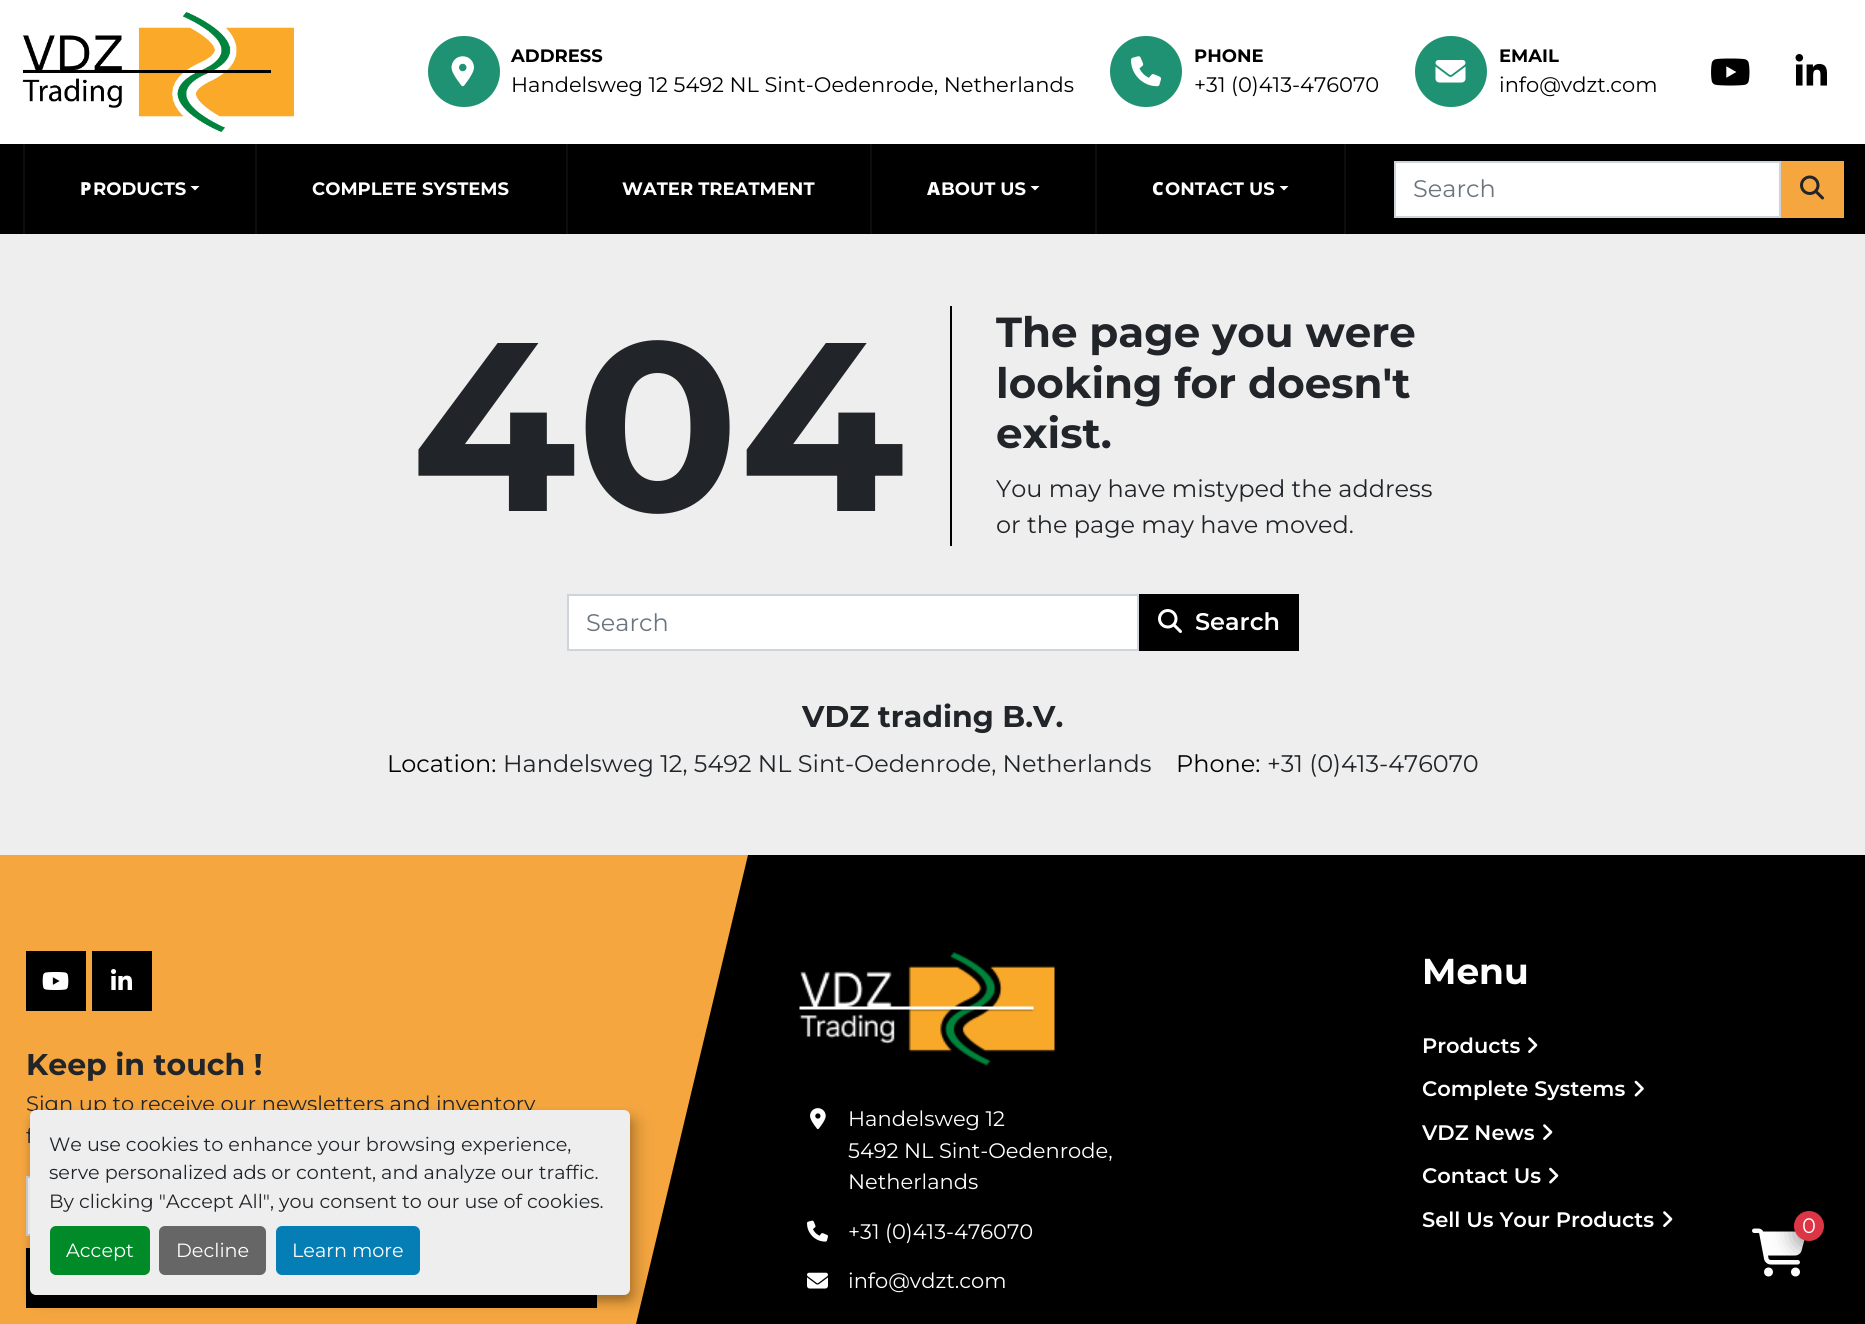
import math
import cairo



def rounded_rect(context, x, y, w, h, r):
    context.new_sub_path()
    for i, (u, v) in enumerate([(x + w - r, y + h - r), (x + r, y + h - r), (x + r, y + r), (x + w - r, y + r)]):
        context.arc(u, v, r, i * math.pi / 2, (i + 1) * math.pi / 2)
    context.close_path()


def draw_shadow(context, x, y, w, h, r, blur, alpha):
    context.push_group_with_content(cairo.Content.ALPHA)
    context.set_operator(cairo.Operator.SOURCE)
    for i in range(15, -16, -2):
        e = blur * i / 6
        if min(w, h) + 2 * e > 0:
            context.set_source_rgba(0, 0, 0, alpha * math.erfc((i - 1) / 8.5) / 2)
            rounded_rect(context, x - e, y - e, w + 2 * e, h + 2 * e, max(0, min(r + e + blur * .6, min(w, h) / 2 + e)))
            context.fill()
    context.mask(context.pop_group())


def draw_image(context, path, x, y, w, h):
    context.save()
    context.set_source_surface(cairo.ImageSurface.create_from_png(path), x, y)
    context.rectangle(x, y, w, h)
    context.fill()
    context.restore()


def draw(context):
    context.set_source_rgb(238 / 255, 238 / 255, 238 / 255)
    context.paint()
    context.set_source_rgb(1, 1, 1)
    context.rectangle(0, 0, 1865, 144)
    context.fill()
    draw_image(context, "images/1.png", 22, 12, 272, 120)
    context.set_source_rgb(31 / 255, 146 / 255, 115 / 255)
    rounded_rect(context, 428, 36, 72, 71, 35.5)
    context.fill()
    draw_image(context, "images/2.png", 451, 56, 23, 31)
    rounded_rect(context, 1110, 36, 72, 71, 35.5)
    context.fill()
    draw_image(context, "images/3.png", 1131, 56, 30, 31)
    rounded_rect(context, 1415, 36, 72, 71, 35.5)
    context.fill()
    draw_image(context, "images/4.png", 1435, 60, 31, 23)
    draw_image(context, "images/5.png", 1711, 58, 39, 28)
    draw_image(context, "images/6.png", 1795, 54, 32, 32)
    context.set_source_rgb(0, 0, 0)
    context.rectangle(0, 144, 1865, 90)
    context.fill()
    context.set_source_rgb(13 / 255, 13 / 255, 13 / 255)
    context.rectangle(23, 144, 2, 90)
    context.fill()
    context.rectangle(255, 144, 2, 90)
    context.fill()
    context.set_source_rgb(1, 1, 1)
    context.new_path()
    context.move_to(190.5, 186)
    context.line_to(199.5, 186)
    context.line_to(195, 190.5)
    context.close_path()
    context.fill()
    context.set_source_rgb(13 / 255, 13 / 255, 13 / 255)
    context.rectangle(566, 144, 2, 90)
    context.fill()
    context.rectangle(870, 144, 2, 90)
    context.fill()
    context.rectangle(1095, 144, 2, 90)
    context.fill()
    context.set_source_rgb(1, 1, 1)
    context.new_path()
    context.move_to(1030.5, 186)
    context.line_to(1039.5, 186)
    context.line_to(1035, 190.5)
    context.close_path()
    context.fill()
    context.set_source_rgb(13 / 255, 13 / 255, 13 / 255)
    context.rectangle(1344, 144, 2, 90)
    context.fill()
    context.set_source_rgb(1, 1, 1)
    context.new_path()
    context.move_to(1279.5, 186)
    context.line_to(1288.5, 186)
    context.line_to(1284, 190.5)
    context.close_path()
    context.fill()
    context.rectangle(1395, 162, 385, 55)
    context.fill_preserve()
    context.set_source_rgb(206 / 255, 212 / 255, 218 / 255)
    context.stroke()
    context.set_source_rgb(245 / 255, 166 / 255, 63 / 255)
    context.rectangle(1781, 161, 63, 57)
    context.fill()
    draw_image(context, "images/7.png", 1800, 175, 24, 25)
    context.set_source_rgb(0, 0, 0)
    context.rectangle(950, 306, 2, 240)
    context.fill()
    context.set_source_rgb(1, 1, 1)
    context.rectangle(568, 595, 570, 55)
    context.fill_preserve()
    context.set_source_rgb(206 / 255, 212 / 255, 218 / 255)
    context.stroke()
    context.set_source_rgb(0, 0, 0)
    context.rectangle(1139, 594, 160, 57)
    context.fill()
    draw_image(context, "images/8.png", 1158, 609, 24, 24)
    context.rectangle(636, 855, 1229, 469)
    context.fill()
    context.set_source_rgb(245 / 255, 166 / 255, 63 / 255)
    context.rectangle(0, 855, 599, 469)
    context.fill()
    context.set_source_rgb(0, 0, 0)
    context.rectangle(26, 951, 60, 60)
    context.fill()
    draw_image(context, "images/9.png", 42, 972, 27, 18)
    context.rectangle(92, 951, 60, 60)
    context.fill()
    draw_image(context, "images/10.png", 111, 969, 21, 21)
    context.set_source_rgb(245 / 255, 166 / 255, 63 / 255)
    context.new_path()
    context.move_to(599, 855)
    context.line_to(748, 855)
    context.line_to(599, 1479)
    context.close_path()
    context.fill()
    context.set_source_rgb(1, 1, 1)
    context.rectangle(28, 1178, 2, 56)
    context.fill()
    context.rectangle(27, 1177, 569, 58)
    context.set_source_rgb(206 / 255, 212 / 255, 218 / 255)
    context.stroke()
    context.set_source_rgb(0, 0, 0)
    context.rectangle(26, 1248, 571, 60)
    context.fill()
    draw_image(context, "images/11.png", 1528, 1037, 10, 16)
    draw_image(context, "images/12.png", 1634, 1080, 10, 17)
    draw_image(context, "images/11.png", 1543, 1124, 10, 16)
    draw_image(context, "images/13.png", 1549, 1167, 10, 17)
    draw_image(context, "images/11.png", 1663, 1211, 10, 16)
    draw_image(context, "images/14.png", 799, 952, 256, 114)
    draw_image(context, "images/15.png", 810, 1108, 16, 22)
    draw_image(context, "images/16.png", 807, 1220, 21, 22)
    draw_image(context, "images/17.png", 807, 1272, 21, 17)
    draw_image(context, "images/18.png", 1752, 1228, 53, 49)
    context.set_source_rgb(0, 0, 0)
    draw_shadow(context, 1794, 1217, 30, 30, 15, 12, 0.4)
    context.set_source_rgb(220 / 255, 53 / 255, 69 / 255)
    context.arc(1809, 1226, 15, 0, 2 * math.pi)
    context.fill()
    context.set_source_rgb(0, 0, 0)
    draw_shadow(context, 38, 1118, 600, 184, 6, 7.5, 0.19)
    draw_shadow(context, 30, 1116, 600, 185, 6, 4.5, 0.2)
    context.select_font_face("Montserrat Thin")
    context.set_font_size(18)
    context.set_source_rgb(0, 0, 0)
    context.move_to(511, 62)
    context.show_text("ADDRESS")
    context.select_font_face("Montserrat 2 Thin")
    context.set_font_size(21)
    context.move_to(511, 92)
    context.show_text("Handelsweg 12 5492 NL Sint-Oedenrode, Netherlands")
    context.select_font_face("Montserrat Thin")
    context.set_font_size(18)
    context.move_to(1194, 62)
    context.show_text("PHONE")
    context.select_font_face("Montserrat 2 Thin")
    context.set_font_size(21)
    context.move_to(1194, 92)
    context.show_text("+31 (0)413-476070")
    context.select_font_face("Montserrat Thin")
    context.set_font_size(18)
    context.move_to(1499, 62)
    context.show_text("EMAIL")
    context.select_font_face("Montserrat 2 Thin")
    context.set_font_size(21)
    context.move_to(1499, 92)
    context.show_text("info@vdzt.com")
    context.select_font_face("Noto Sans Black")
    context.set_font_size(18)
    context.set_source_rgb(1, 1, 1)
    context.move_to(80, 195)
    context.show_text("P")
    context.select_font_face("Montserrat Thin")
    context.move_to(93, 195)
    context.show_text("RODUCTS")
    context.move_to(312, 195)
    context.show_text("COMPLETE SYSTEMS")
    context.move_to(622, 195)
    context.show_text("WATER TREATMENT")
    context.select_font_face("Noto Sans Black")
    context.move_to(927, 195)
    context.show_text("A")
    context.select_font_face("Montserrat Thin")
    context.move_to(941, 195)
    context.show_text("BOUT US")
    context.select_font_face("Noto Sans Black")
    context.move_to(1152, 195)
    context.show_text("C")
    context.select_font_face("Montserrat Thin")
    context.move_to(1165, 195)
    context.show_text("ONTACT US")
    context.select_font_face("Montserrat 2 Thin")
    context.set_font_size(24)
    context.set_source_rgb(108 / 255, 117 / 255, 125 / 255)
    context.move_to(1413, 197)
    context.show_text("Search")
    context.select_font_face("Montserrat Thin")
    context.set_font_size(240)
    context.set_source_rgb(33 / 255, 37 / 255, 41 / 255)
    context.move_to(411, 511)
    context.show_text("404")
    context.set_font_size(42)
    context.move_to(996, 347)
    context.show_text("The page you were")
    context.move_to(996, 398)
    context.show_text("looking for doesn't")
    context.move_to(996, 448)
    context.show_text("exist.")
    context.select_font_face("Montserrat 2 Thin")
    context.set_font_size(24)
    context.move_to(996, 497)
    context.show_text("You may have mistyped the address")
    context.move_to(996, 533)
    context.show_text("or the page may have moved.")
    context.set_source_rgb(108 / 255, 117 / 255, 125 / 255)
    context.move_to(586, 631)
    context.show_text("Search")
    context.select_font_face("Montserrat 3 Thin")
    context.set_source_rgb(1, 1, 1)
    context.move_to(1195, 630)
    context.show_text("Search")
    context.select_font_face("Montserrat Thin")
    context.set_font_size(30)
    context.set_source_rgb(33 / 255, 37 / 255, 41 / 255)
    context.move_to(802, 727)
    context.show_text("VDZ trading B.V.")
    context.select_font_face("Montserrat 2 Thin")
    context.set_font_size(24)
    context.set_source_rgb(0, 0, 0)
    context.move_to(387, 772)
    context.show_text("Location:")
    context.set_source_rgb(33 / 255, 37 / 255, 41 / 255)
    context.move_to(503, 772)
    context.show_text("Handelsweg 12, 5492 NL Sint-Oedenrode, Netherlands")
    context.set_source_rgb(0, 0, 0)
    context.move_to(1176, 772)
    context.show_text("Phone:")
    context.set_source_rgb(33 / 255, 37 / 255, 41 / 255)
    context.move_to(1267, 772)
    context.show_text("+31 (0)413-476070")
    context.select_font_face("Montserrat Thin")
    context.set_font_size(30)
    context.move_to(26, 1075)
    context.show_text("Keep in touch !")
    context.select_font_face("Montserrat 2 Thin")
    context.set_font_size(21)
    context.move_to(26, 1111)
    context.show_text("Sign up to receive our newsletters and inventory")
    context.move_to(26, 1143)
    context.show_text("f")
    context.select_font_face("Montserrat Thin")
    context.set_font_size(36)
    context.set_source_rgb(1, 1, 1)
    context.move_to(1422, 984)
    context.show_text("Menu")
    context.select_font_face("Montserrat 3 Thin")
    context.set_font_size(21)
    context.move_to(1422, 1053)
    context.show_text("Products")
    context.move_to(1422, 1096)
    context.show_text("Complete Systems")
    context.move_to(1422, 1140)
    context.show_text("VDZ News")
    context.move_to(1422, 1183)
    context.show_text("Contact Us")
    context.move_to(1422, 1227)
    context.show_text("Sell Us Your Products")
    context.select_font_face("Montserrat 2 Thin")
    context.move_to(848, 1126)
    context.show_text("Handelsweg 12")
    context.move_to(848, 1158)
    context.show_text("5492 NL Sint-Oedenrode,")
    context.move_to(848, 1189)
    context.show_text("Netherlands")
    context.move_to(848, 1239)
    context.show_text("+31 (0)413-476070")
    context.move_to(848, 1288)
    context.show_text("info@vdzt.com")
    context.move_to(1802, 1233)
    context.show_text("0")
    context.set_source_rgb(238 / 255, 238 / 255, 238 / 255)
    rounded_rect(context, 30, 1110, 600, 185, 6)
    context.fill()
    context.set_font_size(19.2)
    context.set_source_rgb(33 / 255, 37 / 255, 41 / 255)
    context.move_to(49, 1151)
    context.show_text("We use cookies to enhance your browsing experience,")
    context.move_to(49, 1179)
    context.show_text("serve personalized ads or content, and analyze our traffic.")
    context.move_to(49, 1208)
    context.show_text("By clicking \"Accept All\", you consent to our use of cookies.")
    context.set_source_rgb(0, 138 / 255, 40 / 255)
    rounded_rect(context, 50, 1226, 100, 49, 6)
    context.fill()
    context.set_source_rgb(1, 1, 1)
    context.move_to(66, 1257)
    context.show_text("Accept")
    context.set_source_rgb(102 / 255, 102 / 255, 102 / 255)
    rounded_rect(context, 159, 1226, 107, 49, 6)
    context.fill()
    context.set_source_rgb(1, 1, 1)
    context.move_to(176, 1257)
    context.show_text("Decline")
    context.set_source_rgb(5 / 255, 126 / 255, 182 / 255)
    rounded_rect(context, 276, 1226, 144, 49, 6)
    context.fill()
    context.set_source_rgb(1, 1, 1)
    context.move_to(292, 1257)
    context.show_text("Learn more")


surface = cairo.ImageSurface(cairo.Format.RGB24, 1865, 1324)
context = cairo.Context(surface)
options = cairo.FontOptions()
options.set_hint_metrics(cairo.HintMetrics.OFF)
options.set_hint_style(cairo.HintStyle.NONE)
context.set_font_options(options)
context.set_miter_limit(4)
draw(context)
surface.write_to_png("out.png")
